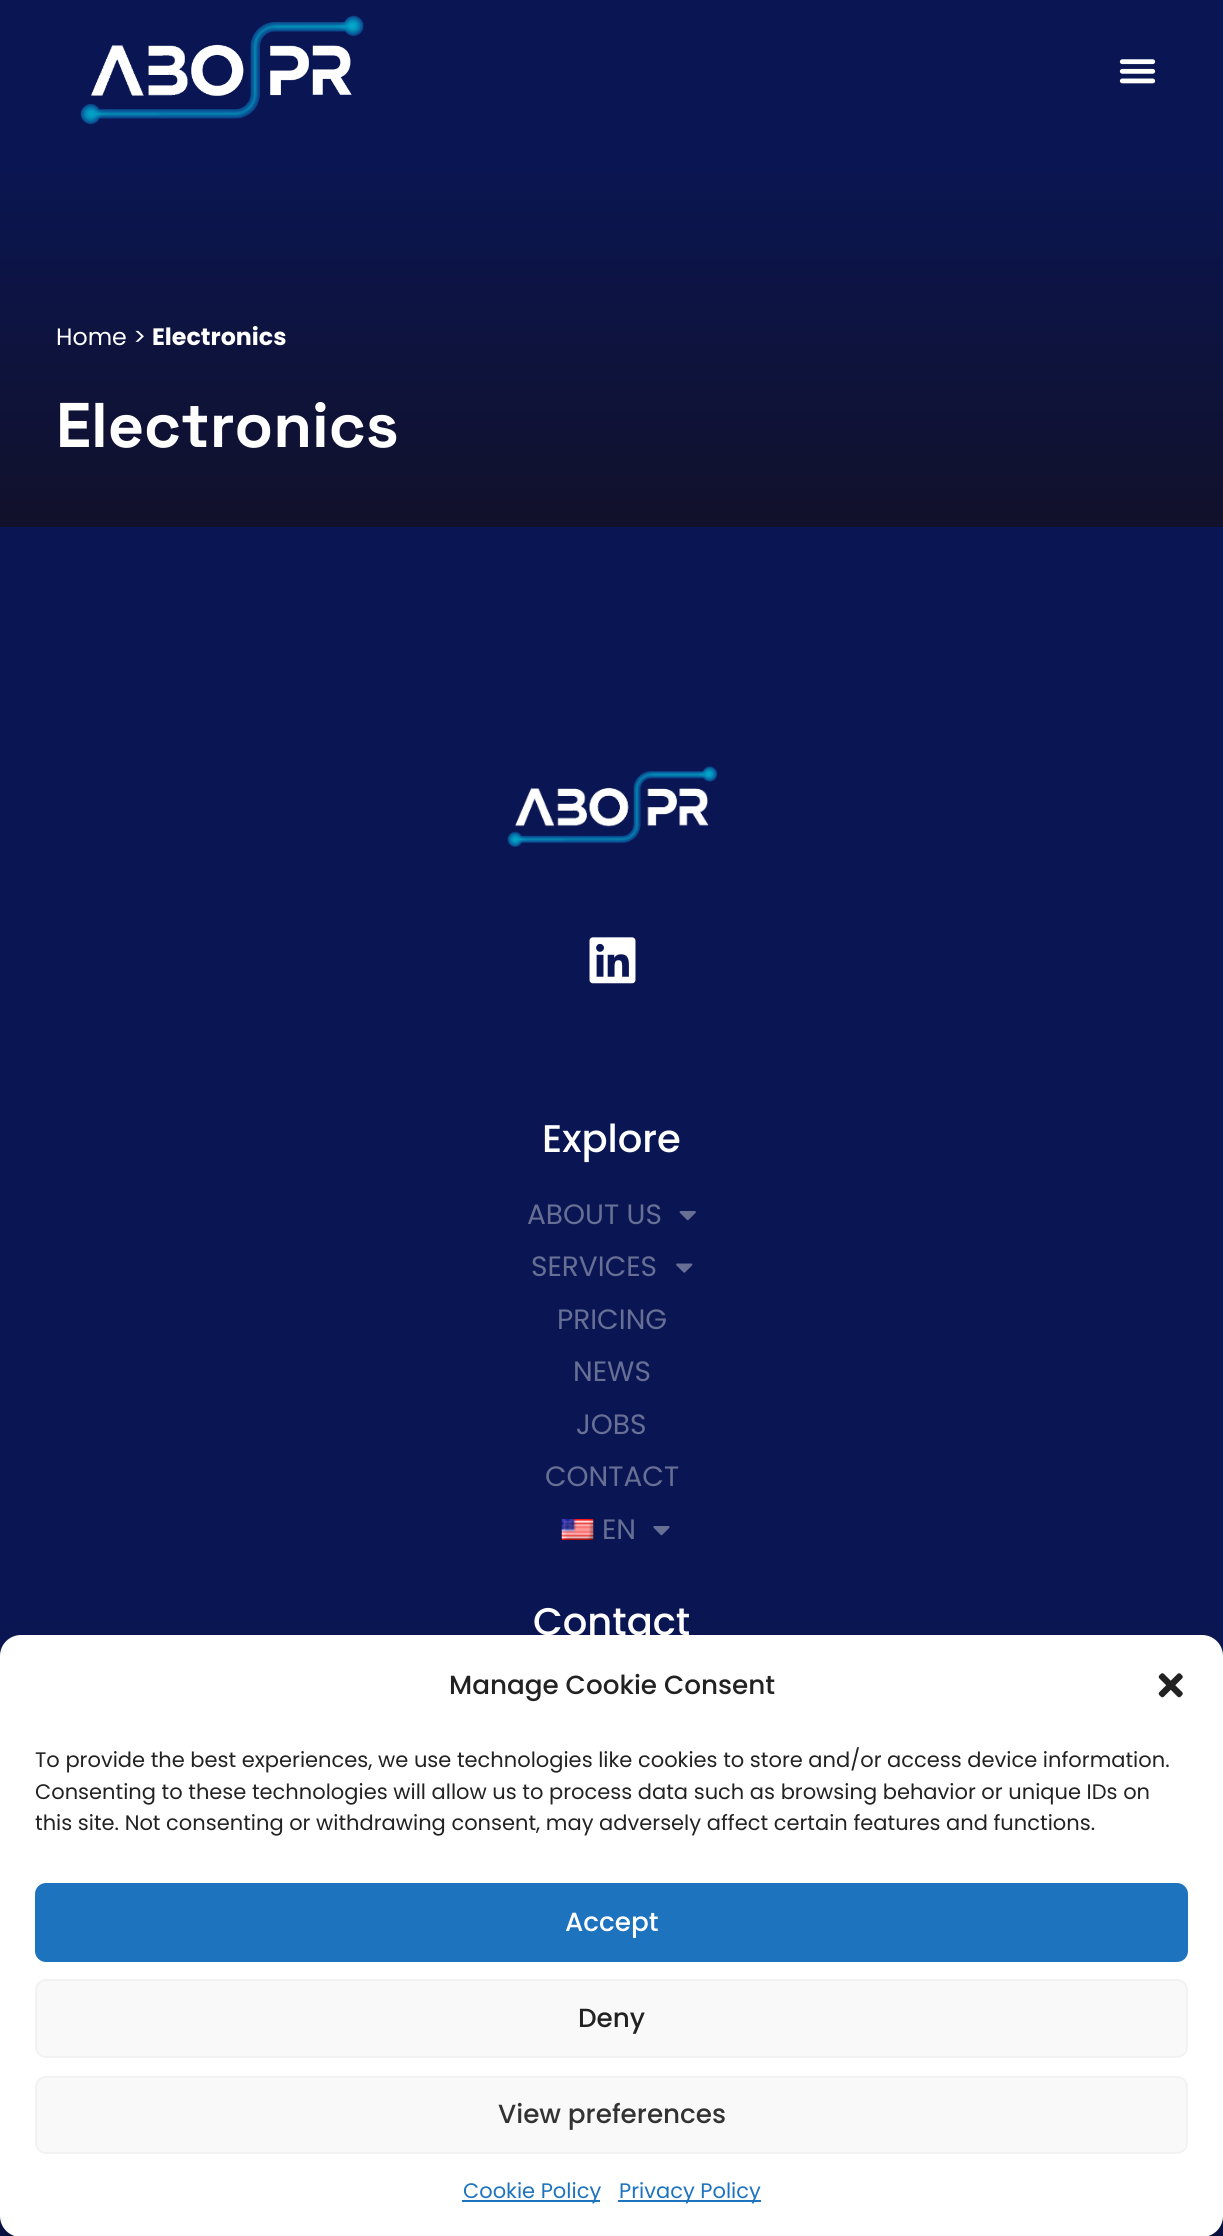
import math
import cairo



def rounded_rect(context, x, y, w, h, r):
    context.new_sub_path()
    for i, (u, v) in enumerate([(x + w - r, y + h - r), (x + r, y + h - r), (x + r, y + r), (x + w - r, y + r)]):
        context.arc(u, v, r, i * math.pi / 2, (i + 1) * math.pi / 2)
    context.close_path()


def draw_shadow(context, x, y, w, h, r, blur, alpha):
    context.push_group_with_content(cairo.Content.ALPHA)
    context.set_operator(cairo.Operator.SOURCE)
    for i in range(15, -16, -2):
        e = blur * i / 6
        if min(w, h) + 2 * e > 0:
            context.set_source_rgba(0, 0, 0, alpha * math.erfc((i - 1) / 8.5) / 2)
            rounded_rect(context, x - e, y - e, w + 2 * e, h + 2 * e, max(0, min(r + e + blur * .6, min(w, h) / 2 + e)))
            context.fill()
    context.mask(context.pop_group())


def draw_image(context, path, x, y, w, h):
    context.save()
    context.set_source_surface(cairo.ImageSurface.create_from_png(path), x, y)
    context.rectangle(x, y, w, h)
    context.fill()
    context.restore()


def draw(context):
    context.set_source_rgb(10 / 255, 22 / 255, 83 / 255)
    context.paint()
    draw_image(context, "images/1.png", 80, 15, 284, 110)
    draw_image(context, "images/2.png", 1119, 59, 37, 25)
    gradient = cairo.LinearGradient(612, 140, 612, 527)
    gradient.add_color_stop_rgba(0, 10 / 255, 22 / 255, 84 / 255, 1)
    gradient.add_color_stop_rgba(1, 17 / 255, 17 / 255, 43 / 255, 1)
    context.set_source(gradient)
    context.rectangle(0, 173, 1223, 354)
    context.fill()
    draw_image(context, "images/3.png", 507, 766, 211, 81)
    draw_image(context, "images/4.png", 589, 937, 47, 47)
    draw_image(context, "images/5.png", 679, 1211, 17, 10)
    draw_image(context, "images/6.png", 676, 1263, 17, 10)
    draw_image(context, "images/7.png", 561, 1519, 33, 21)
    draw_image(context, "images/8.png", 653, 1526, 17, 10)
    context.set_source_rgb(0, 0, 0)
    draw_shadow(context, 0, 1645, 1223, 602, 21, 5, 0.23)
    draw_shadow(context, 0, 1652, 1223, 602, 21, 17.5, 0.19)
    context.set_source_rgb(1, 1, 1)
    rounded_rect(context, 0, 1635, 1223, 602, 21)
    context.fill()
    draw_image(context, "images/9.png", 1158, 1673, 25, 25)
    context.set_source_rgb(30 / 255, 115 / 255, 190 / 255)
    rounded_rect(context, 36, 1884, 1151, 77, 10)
    context.fill_preserve()
    context.stroke()
    context.set_source_rgb(249 / 255, 249 / 255, 249 / 255)
    rounded_rect(context, 36, 1980, 1151, 77, 10)
    context.fill_preserve()
    context.set_source_rgb(242 / 255, 242 / 255, 242 / 255)
    context.stroke()
    context.set_source_rgb(249 / 255, 249 / 255, 249 / 255)
    rounded_rect(context, 36, 2077, 1151, 76, 10)
    context.fill_preserve()
    context.set_source_rgb(242 / 255, 242 / 255, 242 / 255)
    context.stroke()
    context.set_source_rgb(30 / 255, 115 / 255, 190 / 255)
    context.rectangle(462, 2200, 138, 2)
    context.fill()
    context.rectangle(618, 2200, 143, 2)
    context.fill()
    context.select_font_face("Poppins")
    context.set_font_size(23.75)
    context.set_source_rgb(1, 1, 1)
    context.move_to(56, 345)
    context.show_text("Home >")
    context.select_font_face("Poppins", cairo.FontSlant.NORMAL, cairo.FontWeight.BOLD)
    context.move_to(152, 345)
    context.show_text("Electronics")
    context.select_font_face("Space Grotesk", cairo.FontSlant.NORMAL, cairo.FontWeight.BOLD)
    context.set_font_size(63)
    context.move_to(56, 447)
    context.show_text("Electronics")
    context.select_font_face("Poppins Medium")
    context.set_font_size(38.5)
    context.move_to(542, 1152)
    context.show_text("Explore")
    context.select_font_face("Poppins")
    context.set_font_size(28)
    context.set_source_rgb(103 / 255, 111 / 255, 148 / 255)
    context.move_to(527, 1224)
    context.show_text("ABOUT US")
    context.move_to(531, 1276)
    context.show_text("SERVICES")
    context.move_to(557, 1329)
    context.show_text("PRICING")
    context.move_to(573, 1381)
    context.show_text("NEWS")
    context.move_to(576, 1434)
    context.show_text("JOBS")
    context.move_to(545, 1486)
    context.show_text("CONTACT")
    context.move_to(602, 1539)
    context.show_text("EN")
    context.select_font_face("Poppins Medium")
    context.set_font_size(38.5)
    context.set_source_rgb(1, 1, 1)
    context.move_to(533, 1635)
    context.show_text("Contact")
    context.set_font_size(26.25)
    context.set_source_rgb(34 / 255, 34 / 255, 34 / 255)
    context.move_to(449, 1694)
    context.show_text("Manage Cookie Consent")
    context.select_font_face("Poppins")
    context.set_font_size(21)
    context.move_to(35, 1767)
    context.show_text("To provide the best experiences, we use technologies like cookies to store and/or access device information.")
    context.move_to(35, 1799)
    context.show_text("Consenting to these technologies will allow us to process data such as browsing behavior or unique IDs on")
    context.move_to(35, 1830)
    context.show_text("this site. Not consenting or withdrawing consent, may adversely affect certain features and functions.")
    context.select_font_face("Poppins Medium")
    context.set_font_size(26.25)
    context.set_source_rgb(1, 1, 1)
    context.move_to(565, 1931)
    context.show_text("Accept")
    context.set_source_rgb(34 / 255, 34 / 255, 34 / 255)
    context.move_to(578, 2027)
    context.show_text("Deny")
    context.set_source_rgb(51 / 255, 51 / 255, 51 / 255)
    context.move_to(498, 2123)
    context.show_text("View preferences")
    context.select_font_face("Poppins")
    context.set_font_size(21)
    context.set_source_rgb(30 / 255, 115 / 255, 190 / 255)
    context.move_to(463, 2198)
    context.show_text("Cookie Policy")
    context.move_to(619, 2198)
    context.show_text("Privacy Policy")


surface = cairo.ImageSurface(cairo.Format.RGB24, 1223, 2236)
context = cairo.Context(surface)
options = cairo.FontOptions()
options.set_hint_metrics(cairo.HintMetrics.OFF)
options.set_hint_style(cairo.HintStyle.NONE)
context.set_font_options(options)
context.set_miter_limit(4)
draw(context)
surface.write_to_png("out.png")
